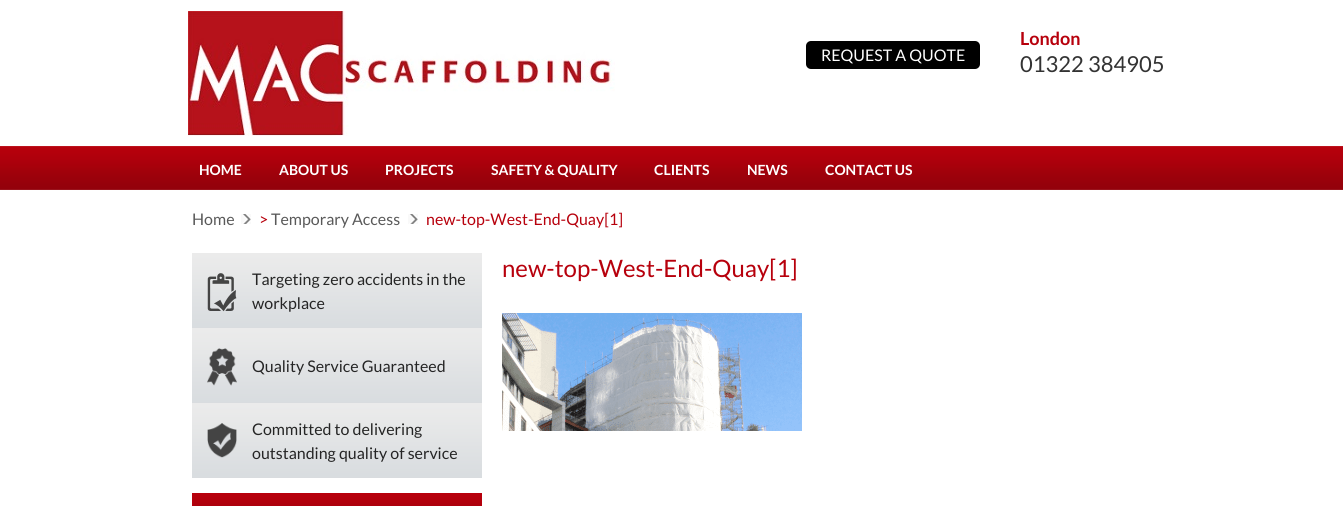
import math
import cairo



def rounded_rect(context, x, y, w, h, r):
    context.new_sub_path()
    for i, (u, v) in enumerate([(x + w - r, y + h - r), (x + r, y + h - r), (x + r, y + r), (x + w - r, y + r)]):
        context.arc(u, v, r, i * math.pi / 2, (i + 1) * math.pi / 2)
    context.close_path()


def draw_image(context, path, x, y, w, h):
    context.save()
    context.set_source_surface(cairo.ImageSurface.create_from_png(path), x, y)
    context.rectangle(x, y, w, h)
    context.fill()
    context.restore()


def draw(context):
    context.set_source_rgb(1, 1, 1)
    context.paint()
    draw_image(context, "images/1.png", 188, 11, 427, 125)
    context.set_source_rgb(0, 0, 0)
    rounded_rect(context, 806, 41, 174, 28, 5)
    context.fill()
    draw_image(context, "images/2.png", 0, 146, 1343, 44)
    draw_image(context, "images/3.png", 241, 214, 10, 10)
    draw_image(context, "images/3.png", 408, 214, 10, 10)
    draw_image(context, "images/4.png", 502, 313, 300, 118)
    draw_image(context, "images/5.png", 192, 253, 290, 75)
    draw_image(context, "images/6.png", 207, 273, 30, 39)
    draw_image(context, "images/5.png", 192, 328, 290, 75)
    draw_image(context, "images/7.png", 207, 348, 30, 38)
    draw_image(context, "images/5.png", 192, 403, 290, 75)
    draw_image(context, "images/8.png", 207, 423, 30, 35)
    context.rectangle(192.5, 493.5, 289, 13)
    context.set_source_rgb(183 / 255, 0, 12 / 255)
    context.set_line_width(1)
    context.stroke()
    draw_image(context, "images/9.png", 193, 494, 288, 12)
    context.select_font_face("Lato")
    context.set_font_size(16)
    context.set_source_rgb(1, 1, 1)
    context.move_to(821, 61)
    context.show_text("REQUEST A QUOTE")
    context.select_font_face("Lato", cairo.FontSlant.NORMAL, cairo.FontWeight.BOLD)
    context.set_font_size(18)
    context.set_source_rgb(183 / 255, 0, 12 / 255)
    context.move_to(1020, 45)
    context.show_text("London")
    context.select_font_face("Lato")
    context.set_font_size(22)
    context.set_source_rgb(51 / 255, 51 / 255, 51 / 255)
    context.move_to(1020, 72)
    context.show_text("01322 384905")
    context.select_font_face("Lato", cairo.FontSlant.NORMAL, cairo.FontWeight.BOLD)
    context.set_font_size(14)
    context.set_source_rgb(1, 1, 1)
    context.move_to(199, 175)
    context.show_text("HOME")
    context.move_to(279, 175)
    context.show_text("ABOUT US")
    context.move_to(385, 175)
    context.show_text("PROJECTS")
    context.move_to(491, 175)
    context.show_text("SAFETY & QUALITY")
    context.move_to(654, 175)
    context.show_text("CLIENTS")
    context.move_to(747, 175)
    context.show_text("NEWS")
    context.move_to(825, 175)
    context.show_text("CONTACT US")
    context.select_font_face("Lato")
    context.set_font_size(16)
    context.set_source_rgb(89 / 255, 89 / 255, 89 / 255)
    context.move_to(192, 225)
    context.show_text("Home")
    context.set_source_rgb(183 / 255, 0, 12 / 255)
    context.move_to(259, 225)
    context.show_text(">")
    context.set_source_rgb(89 / 255, 89 / 255, 89 / 255)
    context.move_to(271, 225)
    context.show_text("Temporary Access")
    context.set_source_rgb(183 / 255, 0, 12 / 255)
    context.move_to(426, 225)
    context.show_text("new-top-West-End-Quay[1]")
    context.set_font_size(24)
    context.move_to(502, 277)
    context.show_text("new-top-West-End-Quay[1]")
    context.set_font_size(16)
    context.set_source_rgb(37 / 255, 37 / 255, 37 / 255)
    context.move_to(252, 285)
    context.show_text("Targeting zero accidents in the")
    context.move_to(252, 309)
    context.show_text("workplace")
    context.move_to(252, 372)
    context.show_text("Quality Service Guaranteed")
    context.move_to(252, 435)
    context.show_text("Committed to delivering")
    context.move_to(252, 459)
    context.show_text("outstanding quality of service")


surface = cairo.ImageSurface(cairo.Format.RGB24, 1343, 506)
context = cairo.Context(surface)
options = cairo.FontOptions()
options.set_hint_metrics(cairo.HintMetrics.OFF)
options.set_hint_style(cairo.HintStyle.NONE)
context.set_font_options(options)
context.set_miter_limit(4)
draw(context)
surface.write_to_png("out.png")
